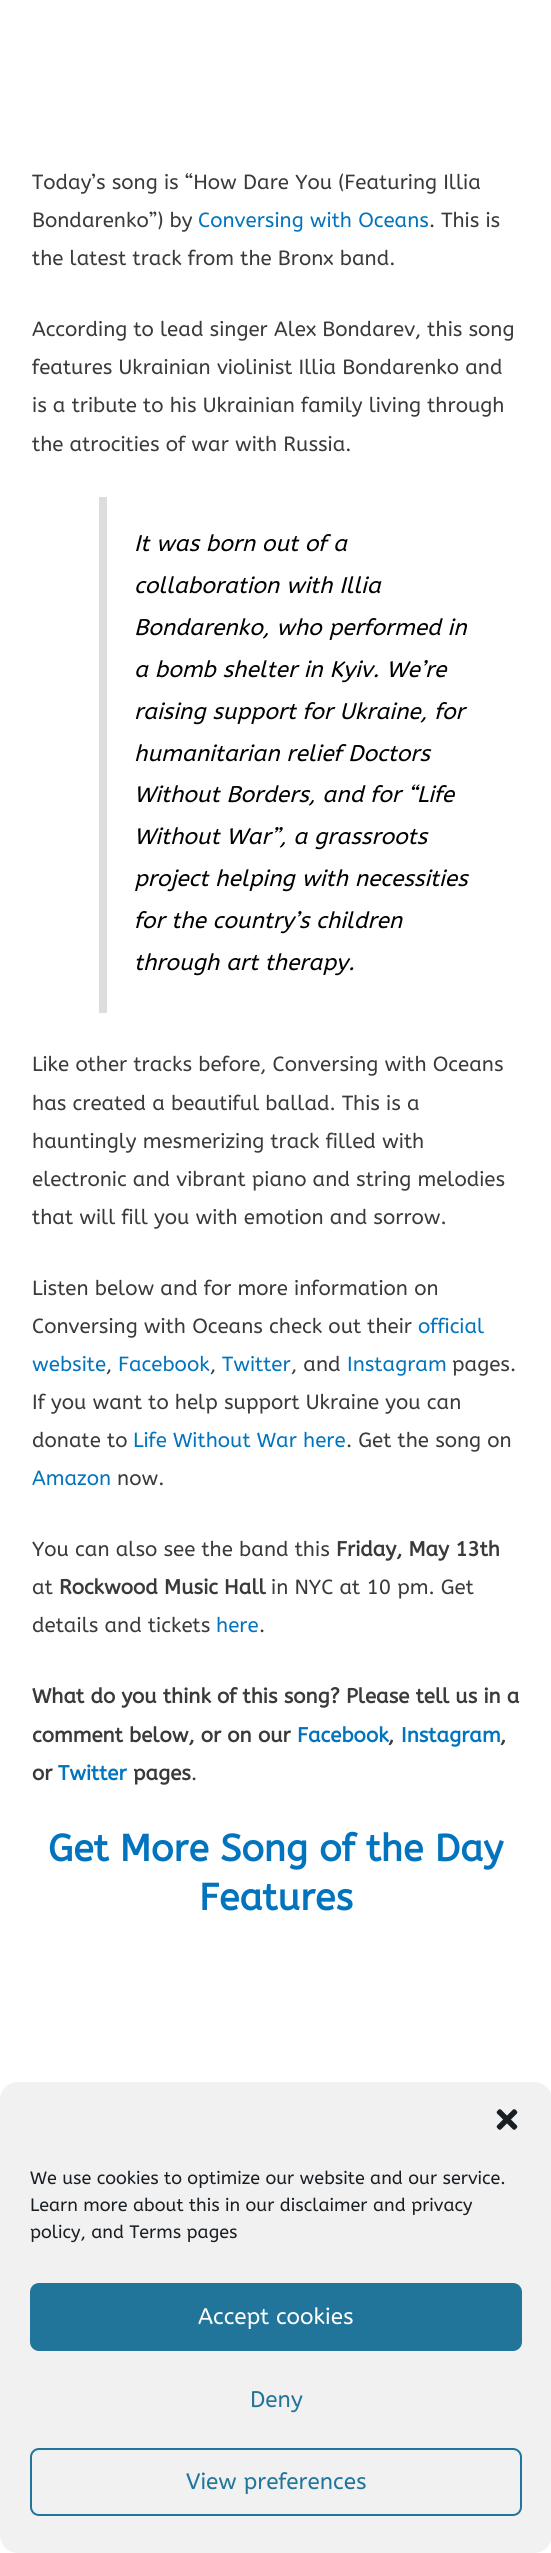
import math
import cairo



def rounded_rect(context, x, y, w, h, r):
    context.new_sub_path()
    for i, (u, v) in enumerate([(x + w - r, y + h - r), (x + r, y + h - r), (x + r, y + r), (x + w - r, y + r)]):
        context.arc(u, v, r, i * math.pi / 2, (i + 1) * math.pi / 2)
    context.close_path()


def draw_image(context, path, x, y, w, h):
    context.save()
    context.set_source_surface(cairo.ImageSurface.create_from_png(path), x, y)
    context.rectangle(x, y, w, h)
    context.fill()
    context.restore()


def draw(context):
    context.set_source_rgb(1, 1, 1)
    context.paint()
    context.set_source_rgb(221 / 255, 221 / 255, 221 / 255)
    context.rectangle(99, 497, 8, 516)
    context.fill()
    context.set_source_rgb(241 / 255, 241 / 255, 241 / 255)
    rounded_rect(context, 0, 2082, 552, 471, 18)
    context.fill()
    draw_image(context, "images/1.png", 496, 2109, 22, 21)
    context.set_source_rgb(33 / 255, 117 / 255, 155 / 255)
    rounded_rect(context, 31, 2284, 490, 66, 8)
    context.fill_preserve()
    context.stroke()
    rounded_rect(context, 31, 2449, 490, 66, 8)
    context.stroke()
    context.select_font_face("ABeeZee")
    context.set_font_size(20.5)
    context.set_source_rgb(58 / 255, 58 / 255, 58 / 255)
    context.move_to(32, 189)
    context.show_text("Today’s song is “How Dare You (Featuring Illia")
    context.move_to(32, 227)
    context.show_text("Bondarenko”) by")
    context.set_source_rgb(2 / 255, 116 / 255, 190 / 255)
    context.move_to(198, 227)
    context.show_text("Conversing with Oceans")
    context.set_source_rgb(58 / 255, 58 / 255, 58 / 255)
    context.move_to(429, 227)
    context.show_text(". This is")
    context.move_to(32, 265)
    context.show_text("the latest track from the Bronx band.")
    context.move_to(32, 336)
    context.show_text("According to lead singer Alex Bondarev, this song")
    context.move_to(32, 374)
    context.show_text("features Ukrainian violinist Illia Bondarenko and")
    context.move_to(32, 412)
    context.show_text("is a tribute to his Ukrainian family living through")
    context.move_to(32, 451)
    context.show_text("the atrocities of war with Russia.")
    context.select_font_face("ABeeZee", cairo.FontSlant.ITALIC)
    context.set_font_size(22.6)
    context.set_source_rgb(0, 0, 0)
    context.move_to(134, 551)
    context.show_text("It was born out of a")
    context.move_to(134, 593)
    context.show_text("collaboration with Illia")
    context.move_to(134, 635)
    context.show_text("Bondarenko, who performed in")
    context.move_to(134, 677)
    context.show_text("a bomb shelter in Kyiv. We’re")
    context.move_to(134, 719)
    context.show_text("raising support for Ukraine, for")
    context.move_to(134, 761)
    context.show_text("humanitarian relief Doctors")
    context.move_to(134, 802)
    context.show_text("Without Borders, and for “Life")
    context.move_to(134, 844)
    context.show_text("Without War”, a grassroots")
    context.move_to(134, 886)
    context.show_text("project helping with necessities")
    context.move_to(134, 928)
    context.show_text("for the country’s children")
    context.move_to(134, 970)
    context.show_text("through art therapy.")
    context.select_font_face("ABeeZee")
    context.set_font_size(20.5)
    context.set_source_rgb(58 / 255, 58 / 255, 58 / 255)
    context.move_to(32, 1071)
    context.show_text("Like other tracks before, Conversing with Oceans")
    context.move_to(32, 1110)
    context.show_text("has created a beautiful ballad. This is a")
    context.move_to(32, 1148)
    context.show_text("hauntingly mesmerizing track filled with")
    context.move_to(32, 1186)
    context.show_text("electronic and vibrant piano and string melodies")
    context.move_to(32, 1224)
    context.show_text("that will fill you with emotion and sorrow.")
    context.move_to(32, 1295)
    context.show_text("Listen below and for more information on")
    context.move_to(32, 1333)
    context.show_text("Conversing with Oceans check out their")
    context.set_source_rgb(2 / 255, 116 / 255, 190 / 255)
    context.move_to(418, 1333)
    context.show_text("official")
    context.move_to(32, 1371)
    context.show_text("website")
    context.set_source_rgb(58 / 255, 58 / 255, 58 / 255)
    context.move_to(106, 1371)
    context.show_text(",")
    context.set_source_rgb(2 / 255, 116 / 255, 190 / 255)
    context.move_to(118, 1371)
    context.show_text("Facebook")
    context.set_source_rgb(58 / 255, 58 / 255, 58 / 255)
    context.move_to(210, 1371)
    context.show_text(",")
    context.set_source_rgb(2 / 255, 116 / 255, 190 / 255)
    context.move_to(222, 1371)
    context.show_text("Twitter")
    context.set_source_rgb(58 / 255, 58 / 255, 58 / 255)
    context.move_to(291, 1371)
    context.show_text(", and")
    context.set_source_rgb(2 / 255, 116 / 255, 190 / 255)
    context.move_to(347, 1371)
    context.show_text("Instagram")
    context.set_source_rgb(58 / 255, 58 / 255, 58 / 255)
    context.move_to(452, 1371)
    context.show_text("pages.")
    context.move_to(32, 1409)
    context.show_text("If you want to help support Ukraine you can")
    context.move_to(32, 1447)
    context.show_text("donate to")
    context.set_source_rgb(2 / 255, 116 / 255, 190 / 255)
    context.move_to(133, 1447)
    context.show_text("Life Without War here")
    context.set_source_rgb(58 / 255, 58 / 255, 58 / 255)
    context.move_to(346, 1447)
    context.show_text(". Get the song on")
    context.set_source_rgb(2 / 255, 116 / 255, 190 / 255)
    context.move_to(32, 1485)
    context.show_text("Amazon")
    context.set_source_rgb(58 / 255, 58 / 255, 58 / 255)
    context.move_to(117, 1485)
    context.show_text("now.")
    context.move_to(32, 1556)
    context.show_text("You can also see the band this")
    context.select_font_face("ABeeZee", cairo.FontSlant.NORMAL, cairo.FontWeight.BOLD)
    context.move_to(336, 1556)
    context.show_text("Friday, May 13th")
    context.select_font_face("ABeeZee")
    context.move_to(32, 1594)
    context.show_text("at")
    context.select_font_face("ABeeZee", cairo.FontSlant.NORMAL, cairo.FontWeight.BOLD)
    context.move_to(59, 1594)
    context.show_text("Rockwood Music Hall")
    context.select_font_face("ABeeZee")
    context.move_to(271, 1594)
    context.show_text("in NYC at 10 pm. Get")
    context.move_to(32, 1632)
    context.show_text("details and tickets")
    context.set_source_rgb(2 / 255, 116 / 255, 190 / 255)
    context.move_to(216, 1632)
    context.show_text("here")
    context.set_source_rgb(58 / 255, 58 / 255, 58 / 255)
    context.move_to(259, 1632)
    context.show_text(".")
    context.select_font_face("ABeeZee", cairo.FontSlant.NORMAL, cairo.FontWeight.BOLD)
    context.move_to(32, 1703)
    context.show_text("What do you think of this song? Please tell us in a")
    context.move_to(32, 1742)
    context.show_text("comment below, or on our")
    context.set_source_rgb(2 / 255, 116 / 255, 190 / 255)
    context.move_to(297, 1742)
    context.show_text("Facebook")
    context.set_source_rgb(58 / 255, 58 / 255, 58 / 255)
    context.move_to(388, 1742)
    context.show_text(",")
    context.set_source_rgb(2 / 255, 116 / 255, 190 / 255)
    context.move_to(401, 1742)
    context.show_text("Instagram")
    context.set_source_rgb(58 / 255, 58 / 255, 58 / 255)
    context.move_to(500, 1742)
    context.show_text(",")
    context.move_to(32, 1780)
    context.show_text("or")
    context.set_source_rgb(2 / 255, 116 / 255, 190 / 255)
    context.move_to(58, 1780)
    context.show_text("Twitter")
    context.set_source_rgb(58 / 255, 58 / 255, 58 / 255)
    context.move_to(133, 1780)
    context.show_text("pages")
    context.select_font_face("ABeeZee")
    context.move_to(191, 1780)
    context.show_text(".")
    context.select_font_face("ABeeZee", cairo.FontSlant.NORMAL, cairo.FontWeight.BOLD)
    context.set_font_size(37.5)
    context.set_source_rgb(2 / 255, 116 / 255, 190 / 255)
    context.move_to(48, 1861)
    context.show_text("Get More Song of the Day")
    context.move_to(199, 1910)
    context.show_text("Features")
    context.select_font_face("ABeeZee")
    context.set_font_size(18)
    context.set_source_rgb(25 / 255, 30 / 255, 35 / 255)
    context.move_to(30, 2184)
    context.show_text("We use cookies to optimize our website and our service.")
    context.move_to(30, 2211)
    context.show_text("Learn more about this in our disclaimer and privacy")
    context.move_to(30, 2238)
    context.show_text("policy, and Terms pages")
    context.set_font_size(22.5)
    context.set_source_rgb(1, 1, 1)
    context.move_to(198, 2324)
    context.show_text("Accept cookies")
    context.set_source_rgb(33 / 255, 117 / 255, 155 / 255)
    context.move_to(250, 2407)
    context.show_text("Deny")
    context.move_to(186, 2489)
    context.show_text("View preferences")


surface = cairo.ImageSurface(cairo.Format.RGB24, 551, 2553)
context = cairo.Context(surface)
options = cairo.FontOptions()
options.set_hint_metrics(cairo.HintMetrics.OFF)
options.set_hint_style(cairo.HintStyle.NONE)
context.set_font_options(options)
context.set_miter_limit(4)
draw(context)
surface.write_to_png("out.png")
